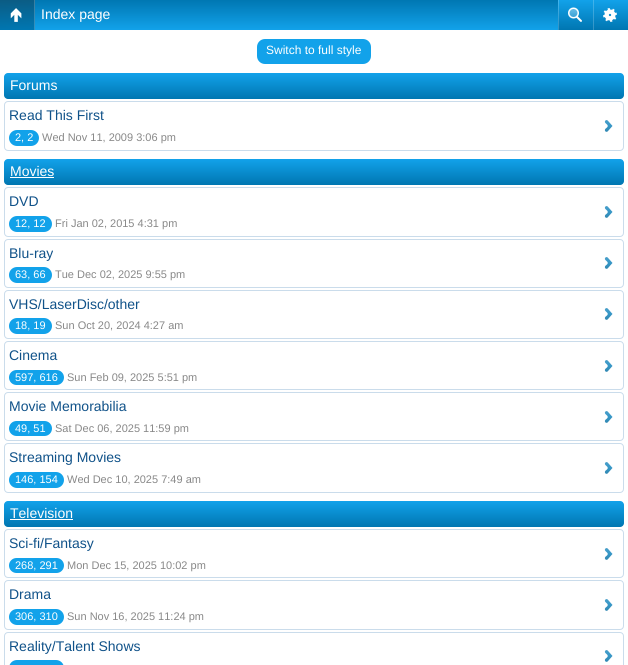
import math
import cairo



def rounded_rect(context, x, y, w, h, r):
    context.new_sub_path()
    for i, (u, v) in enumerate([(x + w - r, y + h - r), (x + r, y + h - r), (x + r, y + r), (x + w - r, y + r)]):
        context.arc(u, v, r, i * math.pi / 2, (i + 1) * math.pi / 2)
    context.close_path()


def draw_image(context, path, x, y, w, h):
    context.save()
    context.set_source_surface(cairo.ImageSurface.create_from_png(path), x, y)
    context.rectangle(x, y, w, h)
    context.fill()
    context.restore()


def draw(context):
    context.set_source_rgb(1, 1, 1)
    context.paint()
    gradient = cairo.LinearGradient(314, 0, 314, 30)
    gradient.add_color_stop_rgba(0, 0, 119 / 255, 178 / 255, 1)
    gradient.add_color_stop_rgba(1, 18 / 255, 162 / 255, 234 / 255, 1)
    context.set_source(gradient)
    context.rectangle(35, 0, 523, 30)
    context.fill()
    gradient = cairo.LinearGradient(17, 0, 18, 30)
    gradient.add_color_stop_rgba(0, 11 / 255, 92 / 255, 132 / 255, 1)
    gradient.add_color_stop_rgba(1, 0, 119 / 255, 178 / 255, 1)
    context.set_source(gradient)
    context.rectangle(0, 0, 34, 30)
    context.fill()
    gradient = cairo.LinearGradient(17, 0, 18, 30)
    gradient.add_color_stop_rgba(0, 60 / 255, 125 / 255, 157 / 255, 1)
    gradient.add_color_stop_rgba(1, 51 / 255, 146 / 255, 193 / 255, 1)
    context.set_source(gradient)
    context.rectangle(34, 0, 1, 30)
    context.fill()
    draw_image(context, "images/1.png", 10, 8, 12, 14)
    gradient = cairo.LinearGradient(576, 0, 576, 30)
    gradient.add_color_stop_rgba(0, 18 / 255, 162 / 255, 234 / 255, 1)
    gradient.add_color_stop_rgba(1, 0, 118 / 255, 177 / 255, 1)
    context.set_source(gradient)
    context.rectangle(559, 0, 34, 30)
    context.fill()
    gradient = cairo.LinearGradient(576, 0, 576, 30)
    gradient.add_color_stop_rgba(0, 65 / 255, 181 / 255, 238 / 255, 1)
    gradient.add_color_stop_rgba(1, 51 / 255, 145 / 255, 193 / 255, 1)
    context.set_source(gradient)
    context.rectangle(558, 0, 1, 30)
    context.fill()
    draw_image(context, "images/2.png", 568, 7, 14, 15)
    gradient = cairo.LinearGradient(611, 0, 611, 30)
    gradient.add_color_stop_rgba(0, 18 / 255, 162 / 255, 234 / 255, 1)
    gradient.add_color_stop_rgba(1, 0, 118 / 255, 177 / 255, 1)
    context.set_source(gradient)
    context.rectangle(594, 0, 34, 30)
    context.fill()
    gradient = cairo.LinearGradient(611, 0, 611, 30)
    gradient.add_color_stop_rgba(0, 65 / 255, 181 / 255, 238 / 255, 1)
    gradient.add_color_stop_rgba(1, 51 / 255, 145 / 255, 193 / 255, 1)
    context.set_source(gradient)
    context.rectangle(593, 0, 1, 30)
    context.fill()
    draw_image(context, "images/3.png", 603, 8, 14, 14)
    context.set_source_rgb(18 / 255, 162 / 255, 234 / 255)
    rounded_rect(context, 257, 39, 114, 25, 8)
    context.fill()
    gradient = cairo.LinearGradient(314, 73, 314, 99)
    gradient.add_color_stop_rgba(0, 18 / 255, 162 / 255, 234 / 255, 1)
    gradient.add_color_stop_rgba(1, 0, 118 / 255, 177 / 255, 1)
    context.set_source(gradient)
    rounded_rect(context, 4, 73, 620, 26, 4)
    context.fill()
    rounded_rect(context, 4.5, 101.5, 619, 49, 3.5)
    context.set_source_rgb(202 / 255, 220 / 255, 235 / 255)
    context.set_line_width(1)
    context.stroke()
    draw_image(context, "images/4.png", 604, 120, 9, 12)
    context.set_source_rgb(18 / 255, 162 / 255, 234 / 255)
    rounded_rect(context, 9, 130, 30, 16, 8)
    context.fill()
    gradient = cairo.LinearGradient(314, 159, 314, 185)
    gradient.add_color_stop_rgba(0, 18 / 255, 162 / 255, 234 / 255, 1)
    gradient.add_color_stop_rgba(1, 0, 118 / 255, 177 / 255, 1)
    context.set_source(gradient)
    rounded_rect(context, 4, 159, 620, 26, 4)
    context.fill()
    context.set_source_rgb(1, 1, 1)
    context.rectangle(10, 177, 44, 1)
    context.fill()
    rounded_rect(context, 4.5, 187.5, 619, 49, 3.5)
    context.set_source_rgb(202 / 255, 220 / 255, 235 / 255)
    context.stroke()
    draw_image(context, "images/4.png", 604, 206, 9, 12)
    context.set_source_rgb(18 / 255, 162 / 255, 234 / 255)
    rounded_rect(context, 9, 216, 43, 16, 8)
    context.fill()
    rounded_rect(context, 4.5, 239.5, 619, 48, 3.5)
    context.set_source_rgb(202 / 255, 220 / 255, 235 / 255)
    context.stroke()
    draw_image(context, "images/4.png", 604, 257, 9, 12)
    context.set_source_rgb(18 / 255, 162 / 255, 234 / 255)
    rounded_rect(context, 9, 267, 43, 16, 8)
    context.fill()
    rounded_rect(context, 4.5, 290.5, 619, 48, 3.5)
    context.set_source_rgb(202 / 255, 220 / 255, 235 / 255)
    context.stroke()
    draw_image(context, "images/4.png", 604, 308, 9, 12)
    context.set_source_rgb(18 / 255, 162 / 255, 234 / 255)
    rounded_rect(context, 9, 318, 43, 16, 8)
    context.fill()
    rounded_rect(context, 4.5, 341.5, 619, 48, 3.5)
    context.set_source_rgb(202 / 255, 220 / 255, 235 / 255)
    context.stroke()
    draw_image(context, "images/4.png", 604, 360, 9, 12)
    context.set_source_rgb(18 / 255, 162 / 255, 234 / 255)
    rounded_rect(context, 9, 370, 55, 15, 7.5)
    context.fill()
    rounded_rect(context, 4.5, 392.5, 619, 48, 3.5)
    context.set_source_rgb(202 / 255, 220 / 255, 235 / 255)
    context.stroke()
    draw_image(context, "images/4.png", 604, 411, 9, 12)
    context.set_source_rgb(18 / 255, 162 / 255, 234 / 255)
    rounded_rect(context, 9, 421, 43, 15, 7.5)
    context.fill()
    rounded_rect(context, 4.5, 443.5, 619, 49, 3.5)
    context.set_source_rgb(202 / 255, 220 / 255, 235 / 255)
    context.stroke()
    draw_image(context, "images/4.png", 604, 462, 9, 12)
    context.set_source_rgb(18 / 255, 162 / 255, 234 / 255)
    rounded_rect(context, 9, 472, 55, 16, 8)
    context.fill()
    gradient = cairo.LinearGradient(314, 501, 314, 527)
    gradient.add_color_stop_rgba(0, 18 / 255, 162 / 255, 234 / 255, 1)
    gradient.add_color_stop_rgba(1, 0, 118 / 255, 177 / 255, 1)
    context.set_source(gradient)
    rounded_rect(context, 4, 501, 620, 26, 4)
    context.fill()
    context.set_source_rgb(1, 1, 1)
    context.rectangle(10, 519, 63, 1)
    context.fill()
    rounded_rect(context, 4.5, 529.5, 619, 48, 3.5)
    context.set_source_rgb(202 / 255, 220 / 255, 235 / 255)
    context.stroke()
    draw_image(context, "images/4.png", 604, 548, 9, 12)
    context.set_source_rgb(18 / 255, 162 / 255, 234 / 255)
    rounded_rect(context, 9, 558, 55, 15, 7.5)
    context.fill()
    rounded_rect(context, 4.5, 580.5, 619, 49, 3.5)
    context.set_source_rgb(202 / 255, 220 / 255, 235 / 255)
    context.stroke()
    draw_image(context, "images/4.png", 604, 599, 9, 12)
    context.set_source_rgb(18 / 255, 162 / 255, 234 / 255)
    rounded_rect(context, 9, 609, 55, 16, 8)
    context.fill()
    rounded_rect(context, 4.5, 632.5, 619, 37, 3.5)
    context.set_source_rgb(202 / 255, 220 / 255, 235 / 255)
    context.stroke()
    draw_image(context, "images/4.png", 604, 650, 9, 12)
    context.set_source_rgb(18 / 255, 162 / 255, 234 / 255)
    rounded_rect(context, 9, 660, 55, 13, 8)
    context.fill()
    context.select_font_face("Liberation Sans")
    context.set_font_size(14)
    context.set_source_rgb(1, 1, 1)
    context.move_to(41, 19)
    context.show_text("Index page")
    context.set_font_size(12)
    context.move_to(266, 54)
    context.show_text("Switch to full style")
    context.set_font_size(14)
    context.move_to(10, 90)
    context.show_text("Forums")
    context.set_source_rgb(16 / 255, 82 / 255, 137 / 255)
    context.move_to(9, 120)
    context.show_text("Read This First")
    context.set_font_size(11)
    context.set_source_rgb(1, 1, 1)
    context.move_to(15, 141)
    context.show_text("2, 2")
    context.set_source_rgb(136 / 255, 136 / 255, 136 / 255)
    context.move_to(42, 141)
    context.show_text("Wed Nov 11, 2009 3:06 pm")
    context.set_font_size(14)
    context.set_source_rgb(1, 1, 1)
    context.move_to(10, 176)
    context.show_text("Movies")
    context.set_source_rgb(16 / 255, 82 / 255, 137 / 255)
    context.move_to(9, 206)
    context.show_text("DVD")
    context.set_font_size(11)
    context.set_source_rgb(1, 1, 1)
    context.move_to(15, 227)
    context.show_text("12, 12")
    context.set_source_rgb(136 / 255, 136 / 255, 136 / 255)
    context.move_to(55, 227)
    context.show_text("Fri Jan 02, 2015 4:31 pm")
    context.set_font_size(14)
    context.set_source_rgb(16 / 255, 82 / 255, 137 / 255)
    context.move_to(9, 258)
    context.show_text("Blu-ray")
    context.set_font_size(11)
    context.set_source_rgb(1, 1, 1)
    context.move_to(15, 278)
    context.show_text("63, 66")
    context.set_source_rgb(136 / 255, 136 / 255, 136 / 255)
    context.move_to(55, 278)
    context.show_text("Tue Dec 02, 2025 9:55 pm")
    context.set_font_size(14)
    context.set_source_rgb(16 / 255, 82 / 255, 137 / 255)
    context.move_to(9, 309)
    context.show_text("VHS/LaserDisc/other")
    context.set_font_size(11)
    context.set_source_rgb(1, 1, 1)
    context.move_to(15, 329)
    context.show_text("18, 19")
    context.set_source_rgb(136 / 255, 136 / 255, 136 / 255)
    context.move_to(55, 329)
    context.show_text("Sun Oct 20, 2024 4:27 am")
    context.set_font_size(14)
    context.set_source_rgb(16 / 255, 82 / 255, 137 / 255)
    context.move_to(9, 360)
    context.show_text("Cinema")
    context.set_font_size(11)
    context.set_source_rgb(1, 1, 1)
    context.move_to(15, 381)
    context.show_text("597, 616")
    context.set_source_rgb(136 / 255, 136 / 255, 136 / 255)
    context.move_to(67, 381)
    context.show_text("Sun Feb 09, 2025 5:51 pm")
    context.set_font_size(14)
    context.set_source_rgb(16 / 255, 82 / 255, 137 / 255)
    context.move_to(9, 411)
    context.show_text("Movie Memorabilia")
    context.set_font_size(11)
    context.set_source_rgb(1, 1, 1)
    context.move_to(15, 432)
    context.show_text("49, 51")
    context.set_source_rgb(136 / 255, 136 / 255, 136 / 255)
    context.move_to(55, 432)
    context.show_text("Sat Dec 06, 2025 11:59 pm")
    context.set_font_size(14)
    context.set_source_rgb(16 / 255, 82 / 255, 137 / 255)
    context.move_to(9, 462)
    context.show_text("Streaming Movies")
    context.set_font_size(11)
    context.set_source_rgb(1, 1, 1)
    context.move_to(15, 483)
    context.show_text("146, 154")
    context.set_source_rgb(136 / 255, 136 / 255, 136 / 255)
    context.move_to(67, 483)
    context.show_text("Wed Dec 10, 2025 7:49 am")
    context.set_font_size(14)
    context.set_source_rgb(1, 1, 1)
    context.move_to(10, 518)
    context.show_text("Television")
    context.set_source_rgb(16 / 255, 82 / 255, 137 / 255)
    context.move_to(9, 548)
    context.show_text("Sci-fi/Fantasy")
    context.set_font_size(11)
    context.set_source_rgb(1, 1, 1)
    context.move_to(15, 569)
    context.show_text("268, 291")
    context.set_source_rgb(136 / 255, 136 / 255, 136 / 255)
    context.move_to(67, 569)
    context.show_text("Mon Dec 15, 2025 10:02 pm")
    context.set_font_size(14)
    context.set_source_rgb(16 / 255, 82 / 255, 137 / 255)
    context.move_to(9, 599)
    context.show_text("Drama")
    context.set_font_size(11)
    context.set_source_rgb(1, 1, 1)
    context.move_to(15, 620)
    context.show_text("306, 310")
    context.set_source_rgb(136 / 255, 136 / 255, 136 / 255)
    context.move_to(67, 620)
    context.show_text("Sun Nov 16, 2025 11:24 pm")
    context.set_font_size(14)
    context.set_source_rgb(16 / 255, 82 / 255, 137 / 255)
    context.move_to(9, 651)
    context.show_text("Reality/Talent Shows")


surface = cairo.ImageSurface(cairo.Format.RGB24, 628, 665)
context = cairo.Context(surface)
options = cairo.FontOptions()
options.set_hint_metrics(cairo.HintMetrics.OFF)
options.set_hint_style(cairo.HintStyle.NONE)
context.set_font_options(options)
context.set_miter_limit(4)
draw(context)
surface.write_to_png("out.png")
